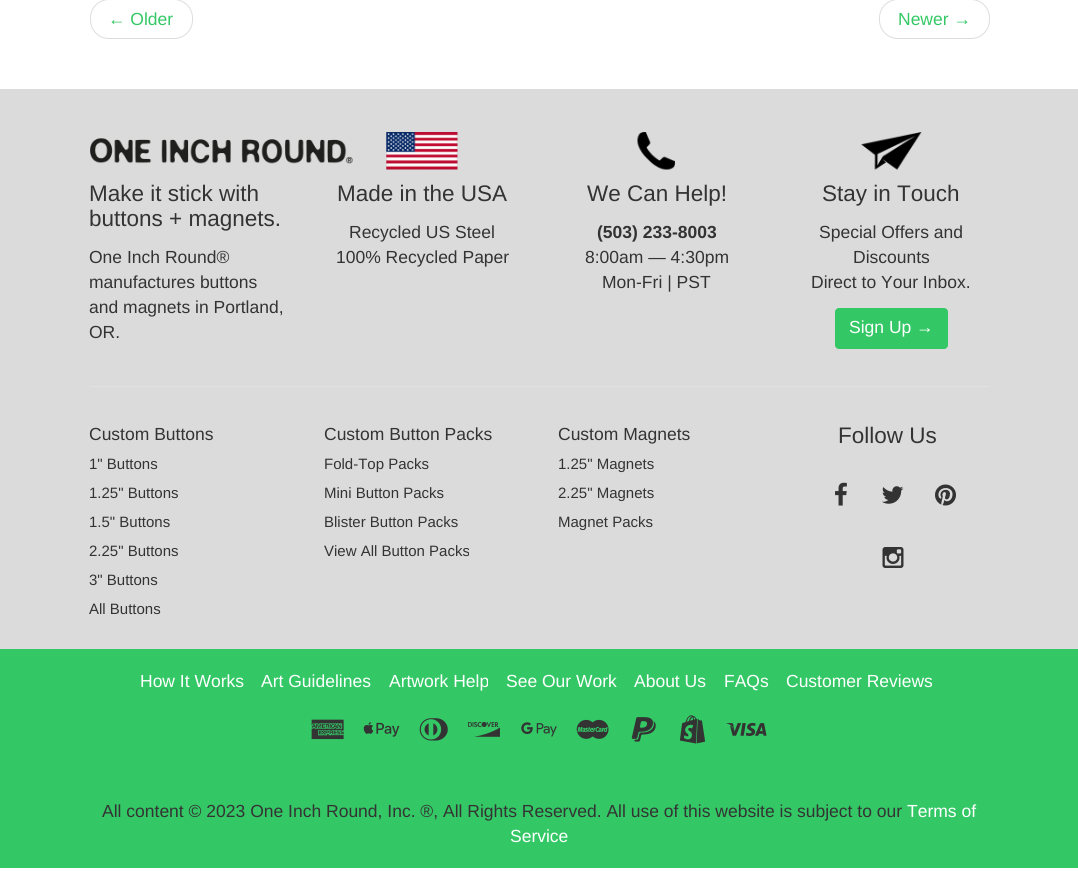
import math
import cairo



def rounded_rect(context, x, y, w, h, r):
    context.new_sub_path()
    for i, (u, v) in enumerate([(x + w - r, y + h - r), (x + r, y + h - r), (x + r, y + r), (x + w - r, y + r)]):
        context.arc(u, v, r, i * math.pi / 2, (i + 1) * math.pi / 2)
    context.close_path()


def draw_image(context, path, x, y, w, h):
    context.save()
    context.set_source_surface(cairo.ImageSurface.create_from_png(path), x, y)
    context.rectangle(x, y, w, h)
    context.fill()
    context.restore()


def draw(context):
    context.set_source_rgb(1, 1, 1)
    context.paint()
    rounded_rect(context, 90.5, -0.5, 102, 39, 18.5)
    context.set_source_rgb(221 / 255, 221 / 255, 221 / 255)
    context.set_line_width(1)
    context.stroke()
    rounded_rect(context, 879.5, -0.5, 110, 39, 18.5)
    context.stroke()
    context.set_source_rgb(219 / 255, 219 / 255, 219 / 255)
    context.rectangle(0, 89, 1078, 560)
    context.fill()
    draw_image(context, "images/1.png", 90, 138, 263, 26)
    draw_image(context, "images/2.png", 386, 132, 72, 38)
    draw_image(context, "images/3.png", 637, 132, 38, 38)
    draw_image(context, "images/4.png", 861, 132, 61, 38)
    context.set_source_rgb(51 / 255, 200 / 255, 101 / 255)
    rounded_rect(context, 835.5, 308.5, 112, 40, 3.5)
    context.fill_preserve()
    context.stroke()
    context.set_source_rgb(225 / 255, 225 / 255, 225 / 255)
    context.rectangle(90, 386, 900, 1)
    context.fill()
    draw_image(context, "images/5.png", 835, 482, 12, 24)
    draw_image(context, "images/6.png", 882, 486, 22, 18)
    draw_image(context, "images/7.png", 935, 484, 21, 22)
    draw_image(context, "images/8.png", 882, 547, 22, 21)
    context.set_source_rgb(51 / 255, 200 / 255, 101 / 255)
    context.rectangle(0, 649, 1078, 219)
    context.fill()
    draw_image(context, "images/9.png", 311, 719, 33, 21)
    draw_image(context, "images/10.png", 363, 722, 37, 15)
    draw_image(context, "images/11.png", 419, 718, 29, 23)
    draw_image(context, "images/12.png", 468, 722, 32, 15)
    draw_image(context, "images/13.png", 521, 722, 36, 15)
    draw_image(context, "images/14.png", 576, 719, 33, 20)
    draw_image(context, "images/15.png", 631, 717, 25, 25)
    draw_image(context, "images/16.png", 679, 715, 27, 29)
    draw_image(context, "images/17.png", 726, 722, 41, 14)
    context.select_font_face("Liberation Sans")
    context.set_font_size(17.5)
    context.move_to(108, 25)
    context.show_text("← Older")
    context.move_to(898, 25)
    context.show_text("Newer →")
    context.set_font_size(22.5)
    context.set_source_rgb(51 / 255, 51 / 255, 51 / 255)
    context.move_to(89, 201)
    context.show_text("Make it stick with")
    context.move_to(89, 226)
    context.show_text("buttons + magnets.")
    context.set_font_size(17.5)
    context.move_to(89, 263)
    context.show_text("One Inch Round®")
    context.move_to(89, 288)
    context.show_text("manufactures buttons")
    context.move_to(89, 313)
    context.show_text("and magnets in Portland,")
    context.move_to(89, 338)
    context.show_text("OR.")
    context.set_font_size(22.5)
    context.move_to(337, 201)
    context.show_text("Made in the USA")
    context.set_font_size(17.5)
    context.move_to(349, 238)
    context.show_text("Recycled US Steel")
    context.move_to(336, 263)
    context.show_text("100% Recycled Paper")
    context.set_font_size(22.5)
    context.move_to(587, 201)
    context.show_text("We Can Help!")
    context.select_font_face("Liberation Sans", cairo.FontSlant.NORMAL, cairo.FontWeight.BOLD)
    context.set_font_size(17.5)
    context.move_to(597, 238)
    context.show_text("(503) 233-8003")
    context.select_font_face("Liberation Sans")
    context.move_to(585, 263)
    context.show_text("8:00am — 4:30pm")
    context.move_to(602, 288)
    context.show_text("Mon-Fri | PST")
    context.set_font_size(22.5)
    context.move_to(822, 201)
    context.show_text("Stay in Touch")
    context.set_font_size(17.5)
    context.move_to(819, 238)
    context.show_text("Special Offers and")
    context.move_to(853, 263)
    context.show_text("Discounts")
    context.move_to(811, 288)
    context.show_text("Direct to Your Inbox.")
    context.set_source_rgb(1, 1, 1)
    context.move_to(849, 333)
    context.show_text("Sign Up →")
    context.set_source_rgb(51 / 255, 51 / 255, 51 / 255)
    context.move_to(89, 440)
    context.show_text("Custom Buttons")
    context.set_font_size(15)
    context.move_to(89, 469)
    context.show_text("1\" Buttons")
    context.move_to(89, 498)
    context.show_text("1.25\" Buttons")
    context.move_to(89, 527)
    context.show_text("1.5\" Buttons")
    context.move_to(89, 556)
    context.show_text("2.25\" Buttons")
    context.move_to(89, 585)
    context.show_text("3\" Buttons")
    context.move_to(89, 614)
    context.show_text("All Buttons")
    context.set_font_size(17.5)
    context.move_to(324, 440)
    context.show_text("Custom Button Packs")
    context.set_font_size(15)
    context.move_to(324, 469)
    context.show_text("Fold-Top Packs")
    context.move_to(324, 498)
    context.show_text("Mini Button Packs")
    context.move_to(324, 527)
    context.show_text("Blister Button Packs")
    context.move_to(324, 556)
    context.show_text("View All Button Packs")
    context.set_font_size(17.5)
    context.move_to(558, 440)
    context.show_text("Custom Magnets")
    context.set_font_size(15)
    context.move_to(558, 469)
    context.show_text("1.25\" Magnets")
    context.move_to(558, 498)
    context.show_text("2.25\" Magnets")
    context.move_to(558, 527)
    context.show_text("Magnet Packs")
    context.set_font_size(22.5)
    context.move_to(838, 443)
    context.show_text("Follow Us")
    context.set_font_size(17.5)
    context.set_source_rgb(1, 1, 1)
    context.move_to(140, 687)
    context.show_text("How It Works")
    context.move_to(261, 687)
    context.show_text("Art Guidelines")
    context.move_to(389, 687)
    context.show_text("Artwork Help")
    context.move_to(506, 687)
    context.show_text("See Our Work")
    context.move_to(634, 687)
    context.show_text("About Us")
    context.move_to(724, 687)
    context.show_text("FAQs")
    context.move_to(786, 687)
    context.show_text("Customer Reviews")
    context.set_source_rgb(51 / 255, 51 / 255, 51 / 255)
    context.move_to(102, 817)
    context.show_text("All content © 2023 One Inch Round, Inc. ®, All Rights Reserved. All use of this website is subject to our")
    context.set_source_rgb(1, 1, 1)
    context.move_to(907, 817)
    context.show_text("Terms of")
    context.move_to(510, 842)
    context.show_text("Service")


surface = cairo.ImageSurface(cairo.Format.RGB24, 1078, 879)
context = cairo.Context(surface)
options = cairo.FontOptions()
options.set_hint_metrics(cairo.HintMetrics.OFF)
options.set_hint_style(cairo.HintStyle.NONE)
context.set_font_options(options)
context.set_miter_limit(4)
draw(context)
surface.write_to_png("out.png")
